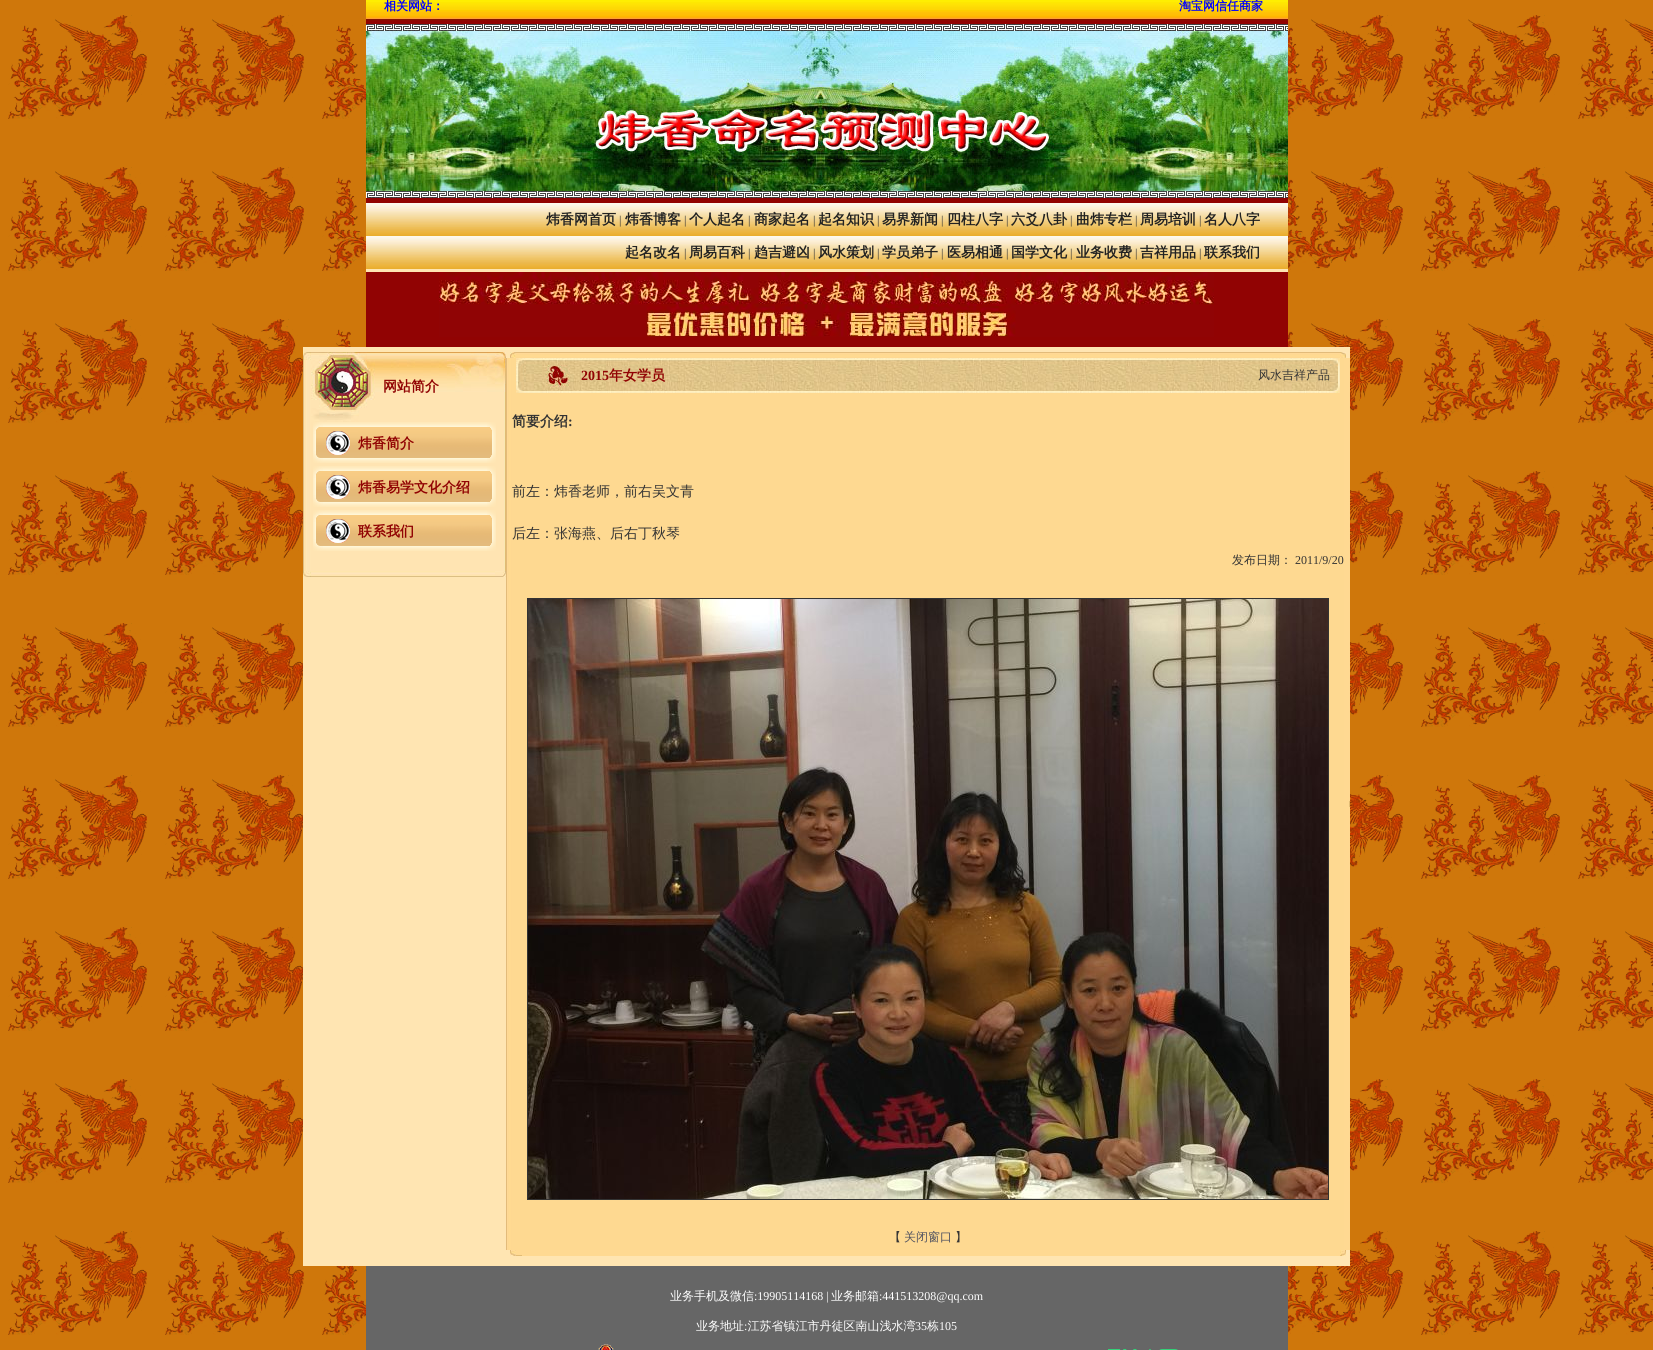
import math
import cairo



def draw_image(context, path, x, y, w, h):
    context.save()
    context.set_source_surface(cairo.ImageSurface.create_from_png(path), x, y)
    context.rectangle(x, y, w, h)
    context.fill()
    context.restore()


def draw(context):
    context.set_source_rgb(1, 1, 1)
    context.paint()
    draw_image(context, "images/1.png", 0, 0, 1653, 1350)
    draw_image(context, "images/2.png", 366, 0, 922, 24)
    draw_image(context, "images/3.png", 366, 24, 922, 7)
    draw_image(context, "images/4.png", 366, 31, 922, 160)
    draw_image(context, "images/3.png", 366, 191, 922, 7)
    context.set_source_rgb(145 / 255, 3 / 255, 3 / 255)
    context.rectangle(366, 198, 922, 5)
    context.fill()
    draw_image(context, "images/5.png", 366, 203, 922, 33)
    draw_image(context, "images/5.png", 366, 236, 922, 33)
    context.set_source_rgb(1, 229 / 255, 178 / 255)
    context.rectangle(366, 269, 922, 3)
    context.fill()
    context.set_source_rgb(145 / 255, 3 / 255, 3 / 255)
    context.rectangle(366, 272, 922, 75)
    context.fill()
    draw_image(context, "images/6.png", 439, 272, 775, 65)
    context.set_source_rgb(1, 229 / 255, 178 / 255)
    context.rectangle(303, 347, 1047, 919)
    context.fill()
    draw_image(context, "images/7.png", 303, 352, 203, 70)
    draw_image(context, "images/8.png", 303, 422, 203, 149)
    draw_image(context, "images/9.png", 313, 422, 45, 41)
    draw_image(context, "images/10.png", 358, 422, 129, 41)
    draw_image(context, "images/11.png", 487, 422, 9, 41)
    draw_image(context, "images/9.png", 313, 466, 45, 41)
    draw_image(context, "images/10.png", 358, 466, 129, 41)
    draw_image(context, "images/11.png", 487, 466, 9, 41)
    draw_image(context, "images/9.png", 313, 510, 45, 41)
    draw_image(context, "images/10.png", 358, 510, 129, 41)
    draw_image(context, "images/11.png", 487, 510, 9, 41)
    draw_image(context, "images/12.png", 303, 571, 203, 6)
    draw_image(context, "images/13.png", 510, 352, 6, 6)
    draw_image(context, "images/14.png", 516, 352, 824, 6)
    draw_image(context, "images/15.png", 1340, 352, 6, 6)
    draw_image(context, "images/16.png", 506, 358, 6, 892)
    context.set_source_rgb(254 / 255, 217 / 255, 145 / 255)
    context.rectangle(512, 358, 832, 892)
    context.fill()
    draw_image(context, "images/17.png", 516, 358, 10, 35)
    draw_image(context, "images/18.png", 526, 358, 654, 35)
    draw_image(context, "images/19.png", 546, 365, 24, 22)
    draw_image(context, "images/20.png", 1180, 358, 150, 35)
    draw_image(context, "images/21.png", 1330, 358, 10, 35)
    context.rectangle(527.5, 598.5, 801, 601)
    context.set_source_rgb(51 / 255, 51 / 255, 51 / 255)
    context.set_line_width(1)
    context.stroke()
    draw_image(context, "images/22.png", 528, 599, 800, 600)
    context.set_source_rgb(1, 217 / 255, 146 / 255)
    context.rectangle(1344, 358, 6, 892)
    context.fill()
    context.set_source_rgb(226 / 255, 188 / 255, 117 / 255)
    context.rectangle(1349, 801, 1, 6)
    context.fill()
    draw_image(context, "images/23.png", 510, 1250, 6, 6)
    context.set_source_rgb(1, 217 / 255, 146 / 255)
    context.rectangle(516, 1250, 824, 6)
    context.fill()
    context.set_source_rgb(226 / 255, 188 / 255, 117 / 255)
    context.rectangle(516, 1255, 6, 1)
    context.fill()
    draw_image(context, "images/24.png", 1340, 1250, 6, 6)
    context.set_source_rgb(102 / 255, 102 / 255, 102 / 255)
    context.rectangle(366, 1266, 922, 84)
    context.fill()
    draw_image(context, "images/25.png", 598, 1344, 16, 6)
    draw_image(context, "images/26.png", 1108, 1349, 70, 1)
    context.select_font_face("WenQuanYi Zen Hei", cairo.FontSlant.NORMAL, cairo.FontWeight.BOLD)
    context.set_font_size(12)
    context.set_source_rgb(0, 0, 1)
    context.move_to(384, 10)
    context.show_text("相关网站：")
    context.move_to(1179, 10)
    context.show_text("淘宝网信任商家")
    context.set_font_size(14)
    context.set_source_rgb(34 / 255, 34 / 255, 34 / 255)
    context.move_to(546, 224)
    context.show_text("炜香网首页")
    context.select_font_face("Liberation Serif")
    context.set_font_size(12)
    context.set_source_rgb(51 / 255, 51 / 255, 51 / 255)
    context.move_to(619, 224)
    context.show_text("|")
    context.select_font_face("WenQuanYi Zen Hei", cairo.FontSlant.NORMAL, cairo.FontWeight.BOLD)
    context.set_font_size(14)
    context.set_source_rgb(34 / 255, 34 / 255, 34 / 255)
    context.move_to(625, 224)
    context.show_text("炜香博客")
    context.select_font_face("Liberation Serif")
    context.set_font_size(12)
    context.set_source_rgb(51 / 255, 51 / 255, 51 / 255)
    context.move_to(684, 224)
    context.show_text("|")
    context.select_font_face("WenQuanYi Zen Hei", cairo.FontSlant.NORMAL, cairo.FontWeight.BOLD)
    context.set_font_size(14)
    context.set_source_rgb(34 / 255, 34 / 255, 34 / 255)
    context.move_to(689, 224)
    context.show_text("个人起名")
    context.select_font_face("Liberation Serif")
    context.set_font_size(12)
    context.set_source_rgb(51 / 255, 51 / 255, 51 / 255)
    context.move_to(748, 224)
    context.show_text("|")
    context.select_font_face("WenQuanYi Zen Hei", cairo.FontSlant.NORMAL, cairo.FontWeight.BOLD)
    context.set_font_size(14)
    context.set_source_rgb(34 / 255, 34 / 255, 34 / 255)
    context.move_to(754, 224)
    context.show_text("商家起名")
    context.select_font_face("Liberation Serif")
    context.set_font_size(12)
    context.set_source_rgb(51 / 255, 51 / 255, 51 / 255)
    context.move_to(813, 224)
    context.show_text("|")
    context.select_font_face("WenQuanYi Zen Hei", cairo.FontSlant.NORMAL, cairo.FontWeight.BOLD)
    context.set_font_size(14)
    context.set_source_rgb(34 / 255, 34 / 255, 34 / 255)
    context.move_to(818, 224)
    context.show_text("起名知识")
    context.select_font_face("Liberation Serif")
    context.set_font_size(12)
    context.set_source_rgb(51 / 255, 51 / 255, 51 / 255)
    context.move_to(877, 224)
    context.show_text("|")
    context.select_font_face("WenQuanYi Zen Hei", cairo.FontSlant.NORMAL, cairo.FontWeight.BOLD)
    context.set_font_size(14)
    context.set_source_rgb(34 / 255, 34 / 255, 34 / 255)
    context.move_to(882, 224)
    context.show_text("易界新闻")
    context.select_font_face("Liberation Serif")
    context.set_font_size(12)
    context.set_source_rgb(51 / 255, 51 / 255, 51 / 255)
    context.move_to(941, 224)
    context.show_text("|")
    context.select_font_face("WenQuanYi Zen Hei", cairo.FontSlant.NORMAL, cairo.FontWeight.BOLD)
    context.set_font_size(14)
    context.set_source_rgb(34 / 255, 34 / 255, 34 / 255)
    context.move_to(947, 224)
    context.show_text("四柱八字")
    context.select_font_face("Liberation Serif")
    context.set_font_size(12)
    context.set_source_rgb(51 / 255, 51 / 255, 51 / 255)
    context.move_to(1006, 224)
    context.show_text("|")
    context.select_font_face("WenQuanYi Zen Hei", cairo.FontSlant.NORMAL, cairo.FontWeight.BOLD)
    context.set_font_size(14)
    context.set_source_rgb(34 / 255, 34 / 255, 34 / 255)
    context.move_to(1011, 224)
    context.show_text("六爻八卦")
    context.select_font_face("Liberation Serif")
    context.set_font_size(12)
    context.set_source_rgb(51 / 255, 51 / 255, 51 / 255)
    context.move_to(1070, 224)
    context.show_text("|")
    context.select_font_face("WenQuanYi Zen Hei", cairo.FontSlant.NORMAL, cairo.FontWeight.BOLD)
    context.set_font_size(14)
    context.set_source_rgb(34 / 255, 34 / 255, 34 / 255)
    context.move_to(1076, 224)
    context.show_text("曲炜专栏")
    context.select_font_face("Liberation Serif")
    context.set_font_size(12)
    context.set_source_rgb(51 / 255, 51 / 255, 51 / 255)
    context.move_to(1135, 224)
    context.show_text("|")
    context.select_font_face("WenQuanYi Zen Hei", cairo.FontSlant.NORMAL, cairo.FontWeight.BOLD)
    context.set_font_size(14)
    context.set_source_rgb(34 / 255, 34 / 255, 34 / 255)
    context.move_to(1140, 224)
    context.show_text("周易培训")
    context.select_font_face("Liberation Serif")
    context.set_font_size(12)
    context.set_source_rgb(51 / 255, 51 / 255, 51 / 255)
    context.move_to(1199, 224)
    context.show_text("|")
    context.select_font_face("WenQuanYi Zen Hei", cairo.FontSlant.NORMAL, cairo.FontWeight.BOLD)
    context.set_font_size(14)
    context.set_source_rgb(34 / 255, 34 / 255, 34 / 255)
    context.move_to(1204, 224)
    context.show_text("名人八字")
    context.move_to(625, 257)
    context.show_text("起名改名")
    context.select_font_face("Liberation Serif")
    context.set_font_size(12)
    context.set_source_rgb(51 / 255, 51 / 255, 51 / 255)
    context.move_to(684, 257)
    context.show_text("|")
    context.select_font_face("WenQuanYi Zen Hei", cairo.FontSlant.NORMAL, cairo.FontWeight.BOLD)
    context.set_font_size(14)
    context.set_source_rgb(34 / 255, 34 / 255, 34 / 255)
    context.move_to(689, 257)
    context.show_text("周易百科")
    context.select_font_face("Liberation Serif")
    context.set_font_size(12)
    context.set_source_rgb(51 / 255, 51 / 255, 51 / 255)
    context.move_to(748, 257)
    context.show_text("|")
    context.select_font_face("WenQuanYi Zen Hei", cairo.FontSlant.NORMAL, cairo.FontWeight.BOLD)
    context.set_font_size(14)
    context.set_source_rgb(34 / 255, 34 / 255, 34 / 255)
    context.move_to(754, 257)
    context.show_text("趋吉避凶")
    context.select_font_face("Liberation Serif")
    context.set_font_size(12)
    context.set_source_rgb(51 / 255, 51 / 255, 51 / 255)
    context.move_to(813, 257)
    context.show_text("|")
    context.select_font_face("WenQuanYi Zen Hei", cairo.FontSlant.NORMAL, cairo.FontWeight.BOLD)
    context.set_font_size(14)
    context.set_source_rgb(34 / 255, 34 / 255, 34 / 255)
    context.move_to(818, 257)
    context.show_text("风水策划")
    context.select_font_face("Liberation Serif")
    context.set_font_size(12)
    context.set_source_rgb(51 / 255, 51 / 255, 51 / 255)
    context.move_to(877, 257)
    context.show_text("|")
    context.select_font_face("WenQuanYi Zen Hei", cairo.FontSlant.NORMAL, cairo.FontWeight.BOLD)
    context.set_font_size(14)
    context.set_source_rgb(34 / 255, 34 / 255, 34 / 255)
    context.move_to(882, 257)
    context.show_text("学员弟子")
    context.select_font_face("Liberation Serif")
    context.set_font_size(12)
    context.set_source_rgb(51 / 255, 51 / 255, 51 / 255)
    context.move_to(941, 257)
    context.show_text("|")
    context.select_font_face("WenQuanYi Zen Hei", cairo.FontSlant.NORMAL, cairo.FontWeight.BOLD)
    context.set_font_size(14)
    context.set_source_rgb(34 / 255, 34 / 255, 34 / 255)
    context.move_to(947, 257)
    context.show_text("医易相通")
    context.select_font_face("Liberation Serif")
    context.set_font_size(12)
    context.set_source_rgb(51 / 255, 51 / 255, 51 / 255)
    context.move_to(1006, 257)
    context.show_text("|")
    context.select_font_face("WenQuanYi Zen Hei", cairo.FontSlant.NORMAL, cairo.FontWeight.BOLD)
    context.set_font_size(14)
    context.set_source_rgb(34 / 255, 34 / 255, 34 / 255)
    context.move_to(1011, 257)
    context.show_text("国学文化")
    context.select_font_face("Liberation Serif")
    context.set_font_size(12)
    context.set_source_rgb(51 / 255, 51 / 255, 51 / 255)
    context.move_to(1070, 257)
    context.show_text("|")
    context.select_font_face("WenQuanYi Zen Hei", cairo.FontSlant.NORMAL, cairo.FontWeight.BOLD)
    context.set_font_size(14)
    context.set_source_rgb(34 / 255, 34 / 255, 34 / 255)
    context.move_to(1076, 257)
    context.show_text("业务收费")
    context.select_font_face("Liberation Serif")
    context.set_font_size(12)
    context.set_source_rgb(51 / 255, 51 / 255, 51 / 255)
    context.move_to(1135, 257)
    context.show_text("|")
    context.select_font_face("WenQuanYi Zen Hei", cairo.FontSlant.NORMAL, cairo.FontWeight.BOLD)
    context.set_font_size(14)
    context.set_source_rgb(34 / 255, 34 / 255, 34 / 255)
    context.move_to(1140, 257)
    context.show_text("吉祥用品")
    context.select_font_face("Liberation Serif")
    context.set_font_size(12)
    context.set_source_rgb(51 / 255, 51 / 255, 51 / 255)
    context.move_to(1199, 257)
    context.show_text("|")
    context.select_font_face("WenQuanYi Zen Hei", cairo.FontSlant.NORMAL, cairo.FontWeight.BOLD)
    context.set_font_size(14)
    context.set_source_rgb(34 / 255, 34 / 255, 34 / 255)
    context.move_to(1204, 257)
    context.show_text("联系我们")
    context.set_source_rgb(145 / 255, 3 / 255, 3 / 255)
    context.move_to(383, 391)
    context.show_text("网站简介")
    context.move_to(358, 448)
    context.show_text("炜香简介")
    context.move_to(358, 492)
    context.show_text("炜香易学文化介绍")
    context.move_to(358, 536)
    context.show_text("联系我们")
    context.select_font_face("Liberation Serif", cairo.FontSlant.NORMAL, cairo.FontWeight.BOLD)
    context.move_to(581, 380)
    context.show_text("2015")
    context.select_font_face("WenQuanYi Zen Hei", cairo.FontSlant.NORMAL, cairo.FontWeight.BOLD)
    context.move_to(609, 380)
    context.show_text("年女学员")
    context.select_font_face("WenQuanYi Zen Hei Medium")
    context.set_font_size(12)
    context.set_source_rgb(51 / 255, 51 / 255, 51 / 255)
    context.move_to(1258, 379)
    context.show_text("风水吉祥产品")
    context.select_font_face("WenQuanYi Zen Hei", cairo.FontSlant.NORMAL, cairo.FontWeight.BOLD)
    context.set_font_size(14)
    context.move_to(512, 426)
    context.show_text("简要介绍")
    context.select_font_face("Liberation Serif", cairo.FontSlant.NORMAL, cairo.FontWeight.BOLD)
    context.move_to(568, 426)
    context.show_text(":")
    context.select_font_face("WenQuanYi Zen Hei Medium")
    context.move_to(512, 496)
    context.show_text("前左：炜香老师，前右吴文青")
    context.move_to(512, 538)
    context.show_text("后左：张海燕、后右丁秋琴")
    context.set_font_size(12)
    context.move_to(1232, 564)
    context.show_text("发布日期：")
    context.select_font_face("Liberation Serif")
    context.move_to(1295, 564)
    context.show_text("2011/9/20")
    context.select_font_face("WenQuanYi Zen Hei Medium")
    context.move_to(889, 1241)
    context.show_text("【")
    context.set_source_rgb(80 / 255, 82 / 255, 96 / 255)
    context.move_to(904, 1241)
    context.show_text("关闭窗口")
    context.set_source_rgb(51 / 255, 51 / 255, 51 / 255)
    context.move_to(955, 1241)
    context.show_text("】")
    context.set_source_rgb(1, 1, 1)
    context.move_to(670, 1300)
    context.show_text("业务手机及微信")
    context.select_font_face("Liberation Serif")
    context.move_to(754, 1300)
    context.show_text(":19905114168 |")
    context.select_font_face("WenQuanYi Zen Hei Medium")
    context.move_to(831, 1300)
    context.show_text("业务邮箱")
    context.select_font_face("Liberation Serif")
    context.move_to(879, 1300)
    context.show_text(":441513208@qq.com")
    context.select_font_face("WenQuanYi Zen Hei Medium")
    context.move_to(696, 1330)
    context.show_text("业务地址 江苏省镇江市丹徒区南山浅水湾")
    context.select_font_face("Liberation Serif")
    context.move_to(915, 1330)
    context.show_text("35")
    context.select_font_face("WenQuanYi Zen Hei Medium")
    context.move_to(927, 1330)
    context.show_text("栋")
    context.select_font_face("Liberation Serif")
    context.move_to(939, 1330)
    context.show_text("105")
    context.move_to(744, 1330)
    context.show_text(":")


surface = cairo.ImageSurface(cairo.Format.RGB24, 1653, 1350)
context = cairo.Context(surface)
options = cairo.FontOptions()
options.set_hint_metrics(cairo.HintMetrics.OFF)
options.set_hint_style(cairo.HintStyle.NONE)
context.set_font_options(options)
context.set_miter_limit(4)
draw(context)
surface.write_to_png("out.png")
